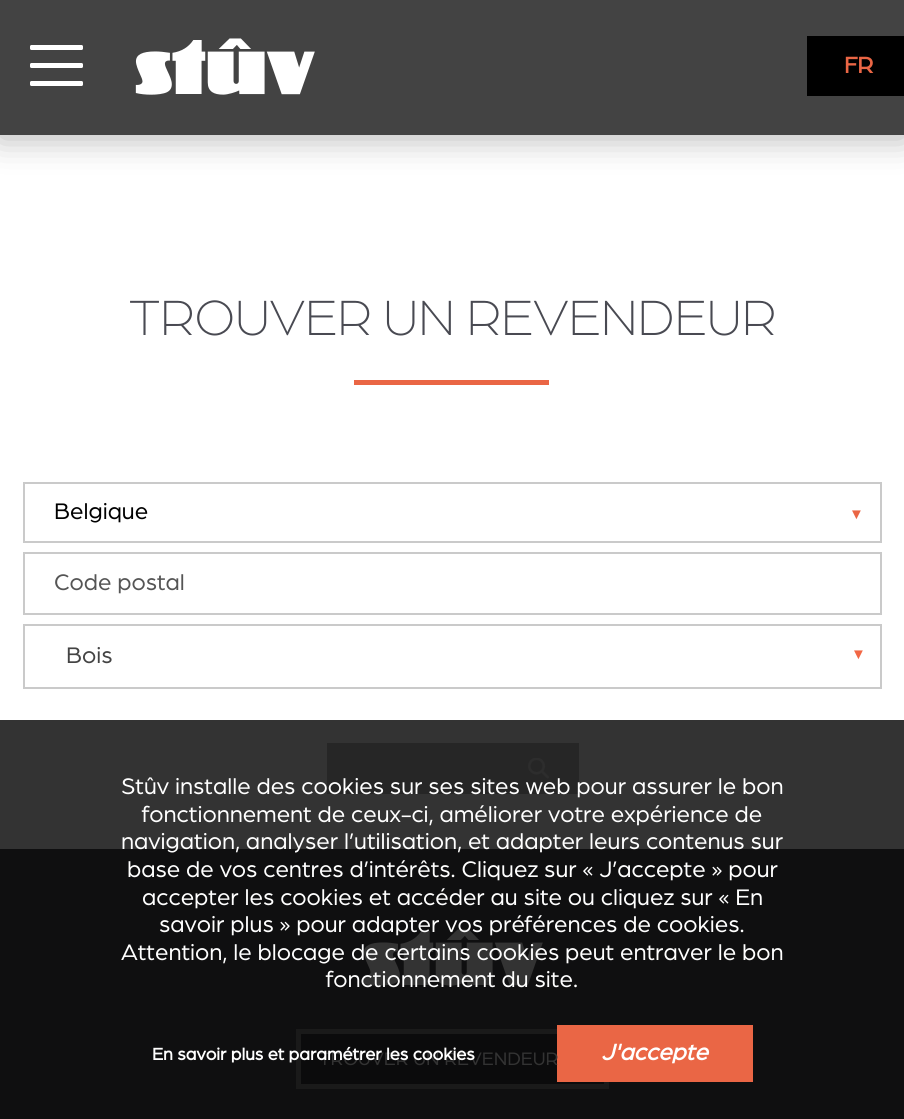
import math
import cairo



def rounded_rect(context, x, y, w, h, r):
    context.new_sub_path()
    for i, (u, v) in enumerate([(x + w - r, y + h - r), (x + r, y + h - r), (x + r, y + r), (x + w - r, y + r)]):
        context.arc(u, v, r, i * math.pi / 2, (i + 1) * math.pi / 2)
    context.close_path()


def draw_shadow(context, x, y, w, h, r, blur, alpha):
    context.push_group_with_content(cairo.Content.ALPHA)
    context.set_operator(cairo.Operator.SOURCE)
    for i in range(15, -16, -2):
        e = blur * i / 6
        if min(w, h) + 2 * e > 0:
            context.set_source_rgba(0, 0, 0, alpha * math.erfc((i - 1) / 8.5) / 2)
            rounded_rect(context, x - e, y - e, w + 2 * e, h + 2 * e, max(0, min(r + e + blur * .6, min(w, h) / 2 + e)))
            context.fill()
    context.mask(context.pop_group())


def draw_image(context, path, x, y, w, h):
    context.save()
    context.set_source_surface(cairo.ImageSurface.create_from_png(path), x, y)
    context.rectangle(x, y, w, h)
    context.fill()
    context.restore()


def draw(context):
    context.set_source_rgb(1, 1, 1)
    context.paint()
    context.set_source_rgb(0, 0, 0)
    draw_shadow(context, -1, 0, 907, 138, 0, 17, 0.3)
    context.set_source_rgb(67 / 255, 67 / 255, 67 / 255)
    context.rectangle(0, 0, 904, 135)
    context.fill()
    context.set_source_rgb(1, 1, 1)
    rounded_rect(context, 30, 45, 53, 5, 1.5)
    context.fill()
    rounded_rect(context, 30, 63, 53, 5, 1.5)
    context.fill()
    rounded_rect(context, 30, 81, 53, 5, 1.5)
    context.fill()
    draw_image(context, "images/1.png", 135, 38, 180, 57)
    context.set_source_rgb(0, 0, 0)
    context.rectangle(807, 36, 97, 60)
    context.fill()
    context.set_source_rgb(51 / 255, 51 / 255, 51 / 255)
    context.rectangle(0, 720, 904, 129)
    context.fill()
    context.set_source_rgb(234 / 255, 102 / 255, 69 / 255)
    context.rectangle(354, 380, 195, 5)
    context.fill()
    context.rectangle(24, 483, 857, 59)
    context.set_source_rgb(202 / 255, 202 / 255, 202 / 255)
    context.stroke()
    context.rectangle(24, 553, 857, 61)
    context.stroke()
    context.rectangle(24, 625, 857, 63)
    context.stroke()
    context.set_source_rgb(38 / 255, 38 / 255, 38 / 255)
    context.rectangle(327, 743, 252, 51)
    context.fill()
    draw_image(context, "images/2.png", 528, 758, 21, 21)
    context.set_source_rgb(15 / 255, 15 / 255, 16 / 255)
    context.rectangle(0, 849, 904, 270)
    context.fill()
    context.set_source_rgb(11 / 255, 11 / 255, 12 / 255)
    context.rectangle(298.5, 1031.5, 308, 55)
    context.fill_preserve()
    context.set_source_rgb(26 / 255, 26 / 255, 26 / 255)
    context.set_line_width(5)
    context.stroke()
    context.set_source_rgb(234 / 255, 102 / 255, 69 / 255)
    context.rectangle(557, 1025, 196, 57)
    context.fill()
    draw_image(context, "images/3.png", 363, 929, 180, 57)
    context.select_font_face("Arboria", cairo.FontSlant.NORMAL, cairo.FontWeight.BOLD)
    context.set_font_size(24)
    context.move_to(844, 73)
    context.show_text("FR")
    context.select_font_face("Arboria Light")
    context.set_font_size(52.75)
    context.set_source_rgb(73 / 255, 74 / 255, 82 / 255)
    context.move_to(129, 335)
    context.show_text("TROUVER UN REVENDEUR")
    context.select_font_face("Arboria")
    context.set_font_size(24)
    context.set_source_rgb(0, 0, 0)
    context.move_to(54, 519)
    context.show_text("Belgique")
    context.select_font_face("Liberation Serif")
    context.set_font_size(15)
    context.set_source_rgb(234 / 255, 102 / 255, 69 / 255)
    context.move_to(849, 519)
    context.show_text("▼")
    context.select_font_face("Arboria")
    context.set_font_size(24)
    context.set_source_rgb(85 / 255, 85 / 255, 85 / 255)
    context.move_to(54, 590)
    context.show_text("Code postal")
    context.set_source_rgb(68 / 255, 68 / 255, 68 / 255)
    context.move_to(66, 663)
    context.show_text("Bois")
    context.select_font_face("Liberation Sans")
    context.set_font_size(15)
    context.set_source_rgb(242 / 255, 103 / 255, 69 / 255)
    context.move_to(851, 659)
    context.show_text("▼")
    context.select_font_face("Arboria")
    context.set_font_size(24)
    context.set_source_rgb(1, 1, 1)
    context.move_to(121, 794)
    context.show_text("Stûv installe des cookies sur ses sites web pour assurer le bon")
    context.move_to(142, 822)
    context.show_text("fonctionnement de ceux-ci, améliorer votre expérience de")
    context.move_to(121, 849)
    context.show_text("navigation, analyser l’utilisation, et adapter leurs contenus sur")
    context.move_to(127, 877)
    context.show_text("base de vos centres d’intérêts. Cliquez sur « J’accepte » pour")
    context.move_to(142, 905)
    context.show_text("accepter les cookies et accéder au site ou cliquez sur « En")
    context.move_to(159, 932)
    context.show_text("savoir plus » pour adapter vos préférences de cookies.")
    context.move_to(121, 960)
    context.show_text("Attention, le blocage de certains cookies peut entraver le bon")
    context.move_to(326, 987)
    context.show_text("fonctionnement du site.")
    context.select_font_face("Arboria", cairo.FontSlant.ITALIC, cairo.FontWeight.BOLD)
    context.move_to(601, 1060)
    context.show_text("J'accepte")
    context.select_font_face("Arboria")
    context.set_font_size(19.25)
    context.set_source_rgb(51 / 255, 51 / 255, 51 / 255)
    context.move_to(319, 1065)
    context.show_text("TROUVER UN REVENDEUR")
    context.select_font_face("Arboria", cairo.FontSlant.NORMAL, cairo.FontWeight.BOLD)
    context.set_font_size(18)
    context.set_source_rgb(1, 1, 1)
    context.move_to(152, 1060)
    context.show_text("En savoir plus et paramétrer les cookies")


surface = cairo.ImageSurface(cairo.Format.RGB24, 904, 1119)
context = cairo.Context(surface)
options = cairo.FontOptions()
options.set_hint_metrics(cairo.HintMetrics.OFF)
options.set_hint_style(cairo.HintStyle.NONE)
context.set_font_options(options)
context.set_miter_limit(4)
draw(context)
surface.write_to_png("out.png")
